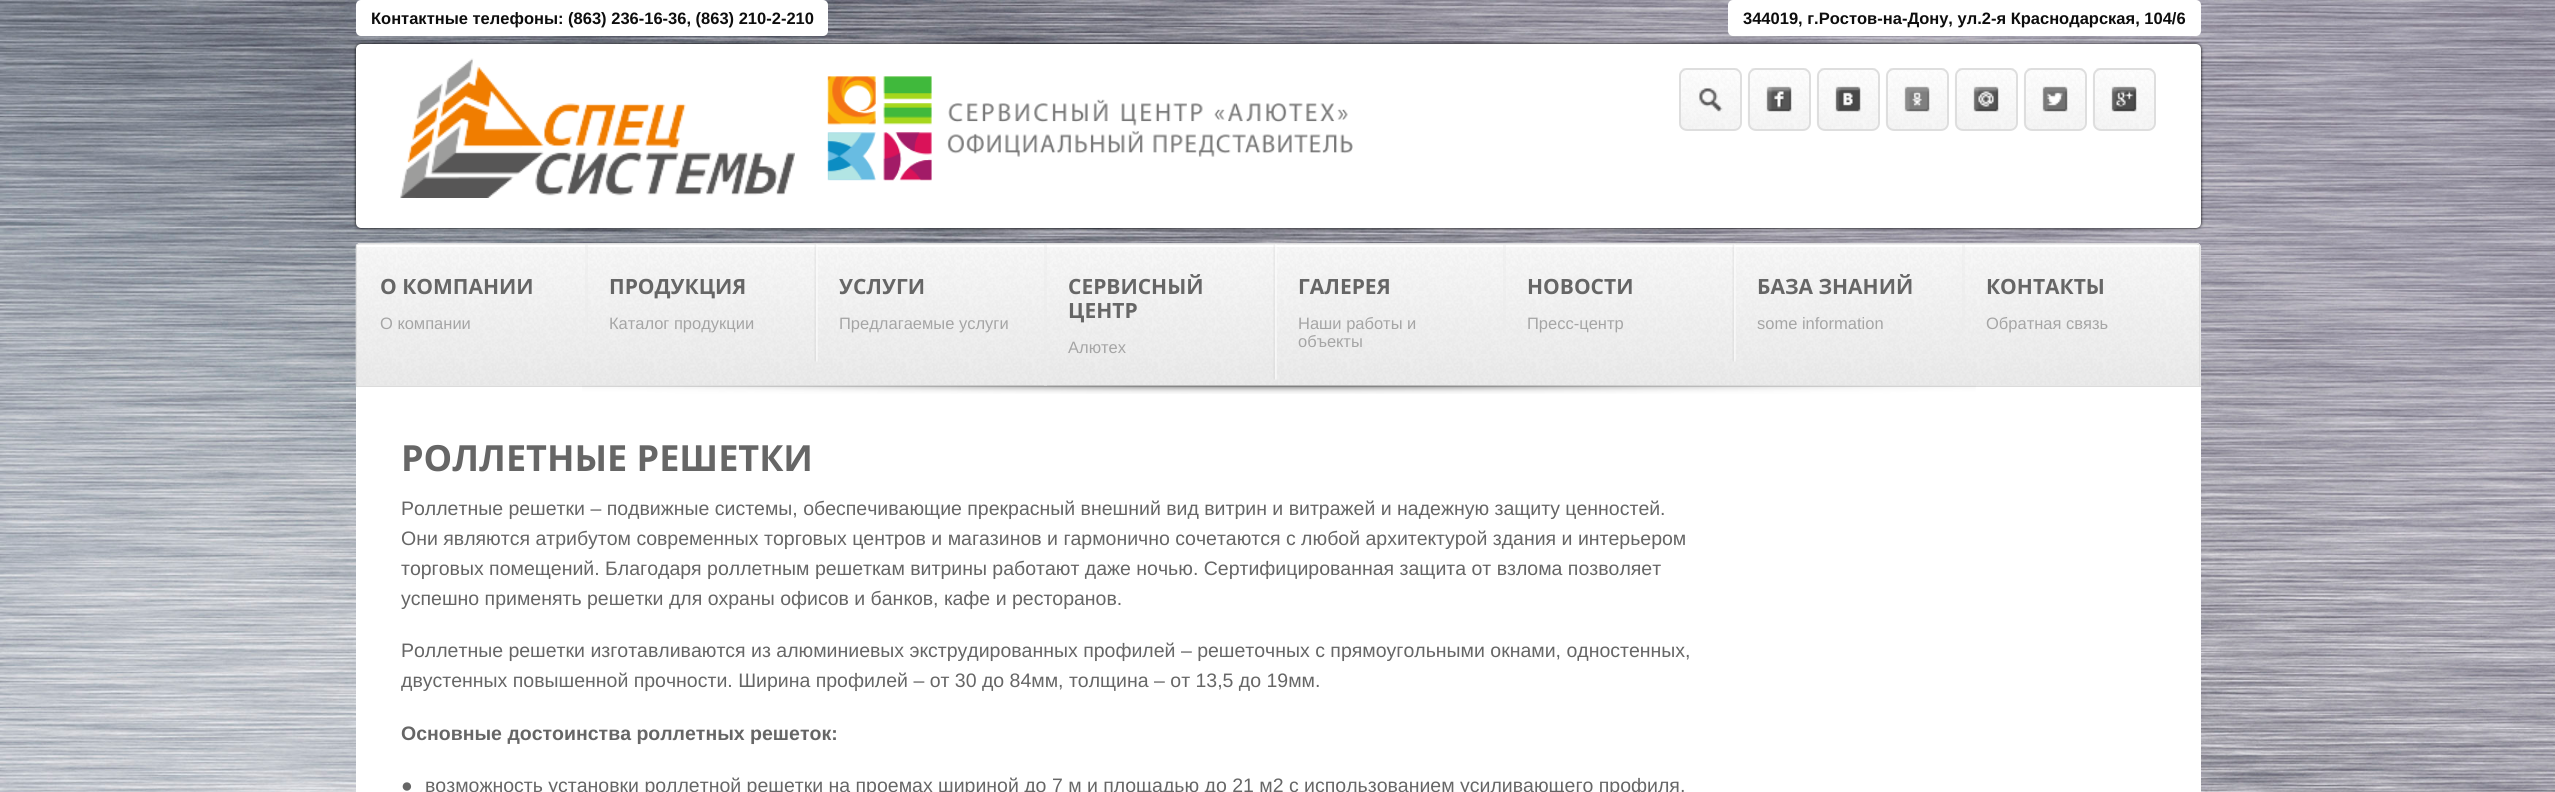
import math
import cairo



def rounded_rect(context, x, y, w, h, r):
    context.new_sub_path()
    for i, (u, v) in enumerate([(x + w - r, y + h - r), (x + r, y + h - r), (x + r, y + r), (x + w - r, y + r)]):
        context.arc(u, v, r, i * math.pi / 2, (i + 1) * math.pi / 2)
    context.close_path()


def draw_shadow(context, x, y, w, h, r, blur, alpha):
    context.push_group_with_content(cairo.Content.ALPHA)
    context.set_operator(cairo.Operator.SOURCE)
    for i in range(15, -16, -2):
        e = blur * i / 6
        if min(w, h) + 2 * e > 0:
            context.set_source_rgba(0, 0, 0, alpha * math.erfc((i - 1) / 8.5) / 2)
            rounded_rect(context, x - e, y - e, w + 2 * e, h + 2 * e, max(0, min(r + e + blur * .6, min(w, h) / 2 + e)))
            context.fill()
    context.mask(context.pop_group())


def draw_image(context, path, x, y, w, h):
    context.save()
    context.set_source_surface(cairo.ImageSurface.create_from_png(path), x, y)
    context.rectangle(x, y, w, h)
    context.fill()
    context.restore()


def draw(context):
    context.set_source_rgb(1, 1, 1)
    context.paint()
    draw_image(context, "images/1.png", 0, 0, 2555, 792)
    context.set_source_rgb(1, 1, 1)
    rounded_rect(context, 356, 0, 472, 36, 5)
    context.fill()
    rounded_rect(context, 1728, 0, 473, 36, 5)
    context.fill()
    context.set_source_rgb(0, 0, 0)
    draw_shadow(context, 356, 44, 1845, 184, 5, 1.5, 1)
    context.set_source_rgb(1, 1, 1)
    rounded_rect(context, 356, 44, 1845, 184, 5)
    context.fill()
    draw_image(context, "images/2.png", 400, 58, 395, 140)
    draw_image(context, "images/3.png", 827, 76, 526, 105)
    draw_image(context, "images/4.png", 1679, 68, 62, 62)
    rounded_rect(context, 1680, 69, 61, 61, 7)
    context.set_source_rgb(222 / 255, 222 / 255, 222 / 255)
    context.stroke()
    draw_image(context, "images/5.png", 1698, 88, 25, 24)
    draw_image(context, "images/6.png", 1747, 68, 63, 62)
    rounded_rect(context, 1749, 69, 61, 61, 7)
    context.stroke()
    draw_image(context, "images/7.png", 1766, 86, 26, 26)
    draw_image(context, "images/8.png", 1816, 68, 63, 62)
    rounded_rect(context, 1818, 69, 61, 61, 7)
    context.stroke()
    draw_image(context, "images/9.png", 1835, 86, 26, 26)
    draw_image(context, "images/8.png", 1885, 68, 63, 62)
    rounded_rect(context, 1887, 69, 61, 61, 7)
    context.stroke()
    draw_image(context, "images/10.png", 1904, 86, 26, 26)
    draw_image(context, "images/8.png", 1954, 68, 63, 62)
    rounded_rect(context, 1956, 69, 61, 61, 7)
    context.stroke()
    draw_image(context, "images/11.png", 1973, 86, 26, 26)
    draw_image(context, "images/6.png", 2023, 68, 63, 62)
    rounded_rect(context, 2025, 69, 61, 61, 7)
    context.stroke()
    draw_image(context, "images/12.png", 2042, 86, 26, 26)
    draw_image(context, "images/8.png", 2092, 68, 63, 62)
    rounded_rect(context, 2094, 69, 61, 61, 7)
    context.stroke()
    draw_image(context, "images/13.png", 2111, 86, 26, 26)
    context.set_source_rgb(1, 1, 1)
    rounded_rect(context, 356, 243, 1845, 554, 5)
    context.fill()
    context.set_source_rgb(219 / 255, 219 / 255, 219 / 255)
    context.new_path()
    context.move_to(356, 386)
    context.line_to(356, 387)
    context.line_to(2201, 387)
    context.line_to(2201, 250)
    context.line_to(2200, 248)
    context.line_to(2200, 386)
    context.close_path()
    context.fill()
    context.set_source_rgb(232 / 255, 232 / 255, 232 / 255)
    context.new_path()
    context.move_to(361, 243)
    context.line_to(2196, 243)
    context.curve_to(2199, 243, 2201, 245, 2201, 248)
    context.line_to(2201, 386)
    context.line_to(356, 386)
    context.line_to(356, 248)
    context.curve_to(356, 245, 358, 243, 361, 243)
    context.close_path()
    context.fill()
    draw_image(context, "images/14.png", 355, 243, 1845, 142)
    context.set_source_rgb(222 / 255, 222 / 255, 222 / 255)
    context.set_fill_rule(cairo.FillRule.EVEN_ODD)
    context.new_path()
    context.move_to(360, 243)
    context.line_to(2196, 243)
    context.curve_to(2198, 243, 2200, 245, 2200, 248)
    context.line_to(2200, 386)
    context.line_to(356, 386)
    context.line_to(356, 248)
    context.curve_to(356, 245, 358, 243, 360, 243)
    context.close_path()
    context.move_to(360, 244)
    context.line_to(2196, 244)
    context.curve_to(2198, 244, 2199, 246, 2199, 248)
    context.line_to(2199, 386)
    context.line_to(357, 386)
    context.line_to(357, 248)
    context.curve_to(357, 246, 358, 244, 360, 244)
    context.close_path()
    context.fill()
    context.set_source_rgb(1, 1, 1)
    context.rectangle(357, 245, 1842, 2)
    context.fill()
    context.set_source_rgba(233 / 255, 233 / 255, 233 / 255, 0.42)
    context.rectangle(585, 244, 3, 85)
    context.fill()
    draw_image(context, "images/15.png", 814, 244, 4, 118)
    draw_image(context, "images/18.png", 582, 385, 1394, 9)
    context.rectangle(1044, 244, 3, 142)
    context.fill()
    draw_image(context, "images/16.png", 1273, 244, 4, 136)
    context.rectangle(1503, 244, 3, 87)
    context.fill()
    draw_image(context, "images/17.png", 1732, 244, 4, 118)
    context.rectangle(1962, 244, 3, 86)
    context.fill()
    context.select_font_face("Liberation Sans", cairo.FontSlant.NORMAL, cairo.FontWeight.BOLD)
    context.set_font_size(16.5)
    context.set_source_rgb(13 / 255, 13 / 255, 13 / 255)
    context.move_to(371, 24)
    context.show_text("Контактные телефоны: (863) 236-16-36, (863) 210-2-210")
    context.move_to(1743, 24)
    context.show_text("344019, г.Ростов-на-Дону, ул.2-я Краснодарская, 104/6")
    context.select_font_face("Open Sans", cairo.FontSlant.NORMAL, cairo.FontWeight.BOLD)
    context.set_font_size(21)
    context.set_source_rgb(102 / 255, 102 / 255, 102 / 255)
    context.move_to(380, 294)
    context.show_text("О КОМПАНИИ")
    context.select_font_face("Liberation Sans")
    context.set_font_size(16.5)
    context.set_source_rgb(165 / 255, 165 / 255, 165 / 255)
    context.move_to(380, 329)
    context.show_text("О компании")
    context.select_font_face("Open Sans", cairo.FontSlant.NORMAL, cairo.FontWeight.BOLD)
    context.set_font_size(21)
    context.set_source_rgb(102 / 255, 102 / 255, 102 / 255)
    context.move_to(609, 294)
    context.show_text("ПРОДУКЦИЯ")
    context.select_font_face("Liberation Sans")
    context.set_font_size(16.5)
    context.set_source_rgb(165 / 255, 165 / 255, 165 / 255)
    context.move_to(609, 329)
    context.show_text("Каталог продукции")
    context.select_font_face("Open Sans", cairo.FontSlant.NORMAL, cairo.FontWeight.BOLD)
    context.set_font_size(21)
    context.set_source_rgb(102 / 255, 102 / 255, 102 / 255)
    context.move_to(839, 294)
    context.show_text("УСЛУГИ")
    context.select_font_face("Liberation Sans")
    context.set_font_size(16.5)
    context.set_source_rgb(165 / 255, 165 / 255, 165 / 255)
    context.move_to(839, 329)
    context.show_text("Предлагаемые услуги")
    context.select_font_face("Open Sans", cairo.FontSlant.NORMAL, cairo.FontWeight.BOLD)
    context.set_font_size(21)
    context.set_source_rgb(102 / 255, 102 / 255, 102 / 255)
    context.move_to(1068, 294)
    context.show_text("СЕРВИСНЫЙ")
    context.move_to(1068, 318)
    context.show_text("ЦЕНТР")
    context.select_font_face("Liberation Sans")
    context.set_font_size(16.5)
    context.set_source_rgb(165 / 255, 165 / 255, 165 / 255)
    context.move_to(1068, 353)
    context.show_text("Алютех")
    context.select_font_face("Open Sans", cairo.FontSlant.NORMAL, cairo.FontWeight.BOLD)
    context.set_font_size(21)
    context.set_source_rgb(102 / 255, 102 / 255, 102 / 255)
    context.move_to(1298, 294)
    context.show_text("ГАЛЕРЕЯ")
    context.select_font_face("Liberation Sans")
    context.set_font_size(16.5)
    context.set_source_rgb(165 / 255, 165 / 255, 165 / 255)
    context.move_to(1298, 329)
    context.show_text("Наши работы и")
    context.move_to(1298, 347)
    context.show_text("объекты")
    context.select_font_face("Open Sans", cairo.FontSlant.NORMAL, cairo.FontWeight.BOLD)
    context.set_font_size(21)
    context.set_source_rgb(102 / 255, 102 / 255, 102 / 255)
    context.move_to(1527, 294)
    context.show_text("НОВОСТИ")
    context.select_font_face("Liberation Sans")
    context.set_font_size(16.5)
    context.set_source_rgb(165 / 255, 165 / 255, 165 / 255)
    context.move_to(1527, 329)
    context.show_text("Пресс-центр")
    context.select_font_face("Open Sans", cairo.FontSlant.NORMAL, cairo.FontWeight.BOLD)
    context.set_font_size(21)
    context.set_source_rgb(102 / 255, 102 / 255, 102 / 255)
    context.move_to(1757, 294)
    context.show_text("БАЗА ЗНАНИЙ")
    context.select_font_face("Liberation Sans")
    context.set_font_size(16.5)
    context.set_source_rgb(165 / 255, 165 / 255, 165 / 255)
    context.move_to(1757, 329)
    context.show_text("some information")
    context.select_font_face("Open Sans", cairo.FontSlant.NORMAL, cairo.FontWeight.BOLD)
    context.set_font_size(21)
    context.set_source_rgb(102 / 255, 102 / 255, 102 / 255)
    context.move_to(1986, 294)
    context.show_text("КОНТАКТЫ")
    context.select_font_face("Liberation Sans")
    context.set_font_size(16.5)
    context.set_source_rgb(165 / 255, 165 / 255, 165 / 255)
    context.move_to(1986, 329)
    context.show_text("Обратная связь")
    context.select_font_face("Open Sans", cairo.FontSlant.NORMAL, cairo.FontWeight.BOLD)
    context.set_font_size(36)
    context.set_source_rgb(102 / 255, 102 / 255, 102 / 255)
    context.move_to(401, 471)
    context.show_text("РОЛЛЕТНЫЕ РЕШЕТКИ")
    context.select_font_face("Liberation Sans")
    context.set_font_size(19.5)
    context.move_to(401, 515)
    context.show_text("Роллетные решетки – подвижные системы, обеспечивающие прекрасный внешний вид витрин и витражей и надежную защиту ценностей.")
    context.move_to(401, 545)
    context.show_text("Они являются атрибутом современных торговых центров и магазинов и гармонично сочетаются с любой архитектурой здания и интерьером")
    context.move_to(401, 575)
    context.show_text("торговых помещений. Благодаря роллетным решеткам витрины работают даже ночью. Сертифицированная защита от взлома позволяет")
    context.move_to(401, 605)
    context.show_text("успешно применять решетки для охраны офисов и банков, кафе и ресторанов.")
    context.move_to(401, 657)
    context.show_text("Роллетные решетки изготавливаются из алюминиевых экструдированных профилей – решеточных с прямоугольными окнами, одностенных,")
    context.move_to(401, 687)
    context.show_text("двустенных повышенной прочности. Ширина профилей – от 30 до 84мм, толщина – от 13,5 до 19мм.")
    context.select_font_face("Liberation Sans", cairo.FontSlant.NORMAL, cairo.FontWeight.BOLD)
    context.move_to(401, 740)
    context.show_text("Основные достоинства роллетных решеток:")
    context.select_font_face("Liberation Sans")
    context.move_to(401, 792)
    context.show_text("●")
    context.move_to(425, 792)
    context.show_text("возможность установки роллетной решетки на проемах шириной до 7 м и площадью до 21 м2 с использованием усиливающего профиля,")


surface = cairo.ImageSurface(cairo.Format.RGB24, 2555, 792)
context = cairo.Context(surface)
options = cairo.FontOptions()
options.set_hint_metrics(cairo.HintMetrics.OFF)
options.set_hint_style(cairo.HintStyle.NONE)
context.set_font_options(options)
context.set_miter_limit(4)
draw(context)
surface.write_to_png("out.png")
